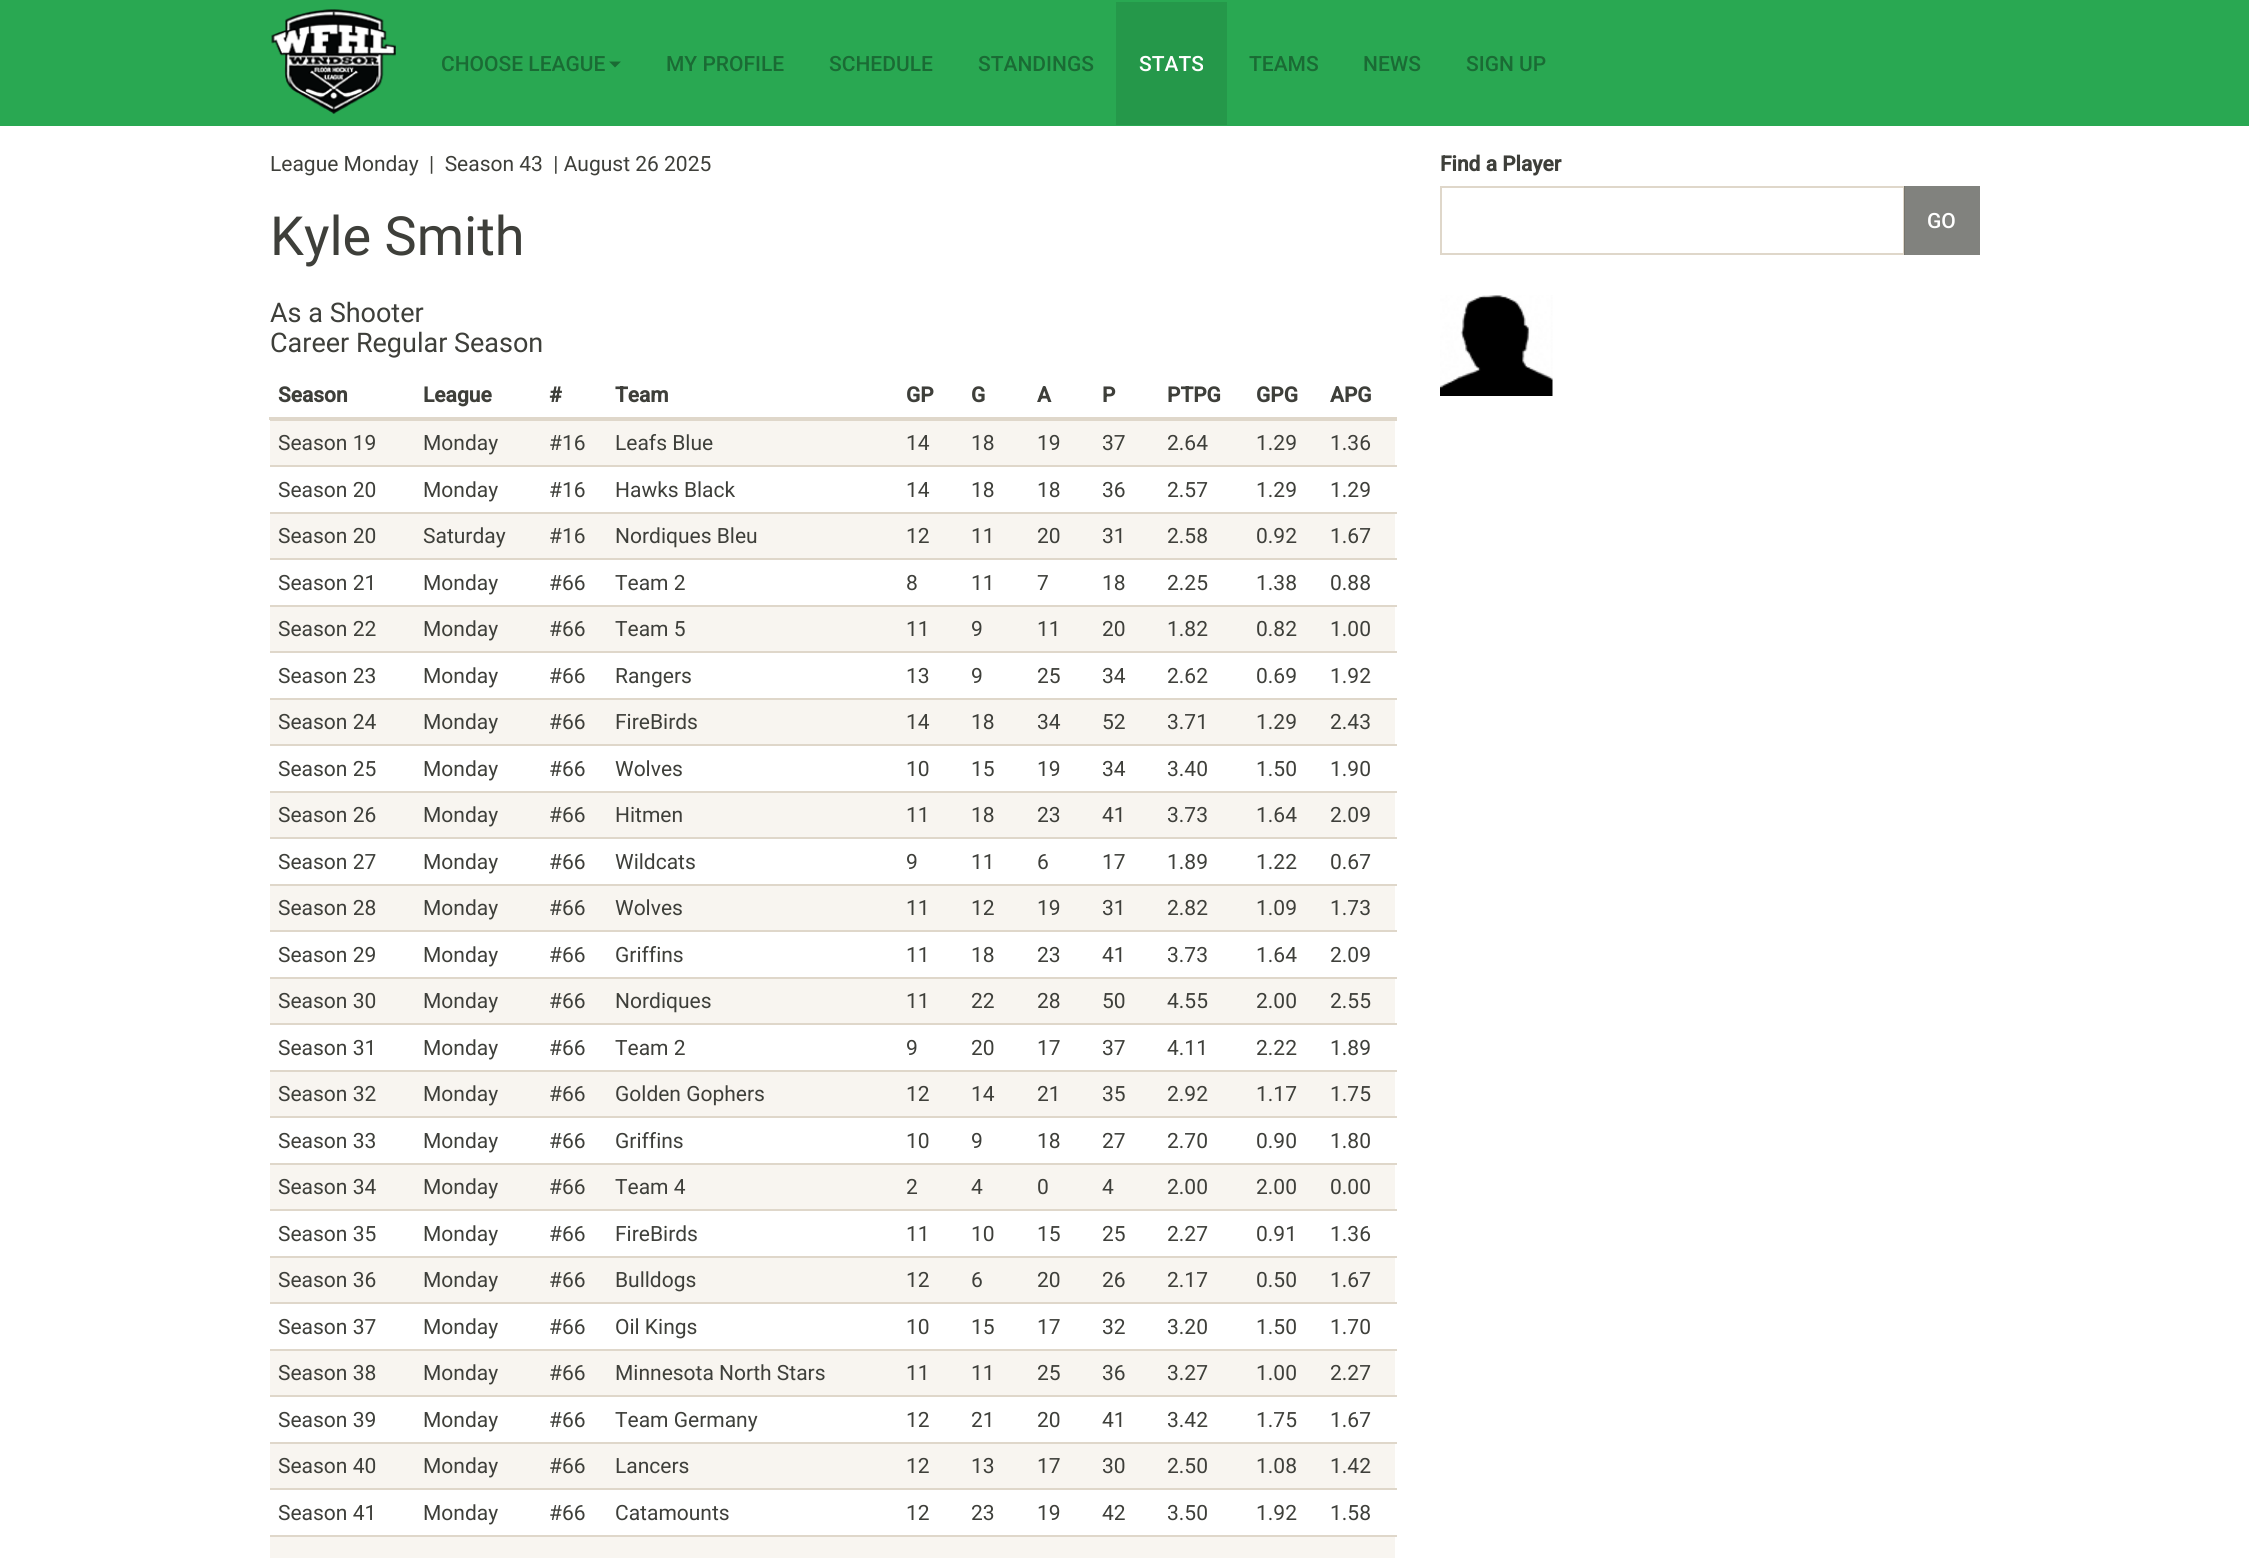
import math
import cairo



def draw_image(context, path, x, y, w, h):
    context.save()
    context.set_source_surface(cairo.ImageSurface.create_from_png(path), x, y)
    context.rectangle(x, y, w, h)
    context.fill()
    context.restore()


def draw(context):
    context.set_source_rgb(1, 1, 1)
    context.paint()
    context.set_source_rgb(41 / 255, 168 / 255, 82 / 255)
    context.rectangle(0, 0, 2249, 126)
    context.fill()
    draw_image(context, "images/1.png", 271, 9, 125, 105)
    context.set_source_rgb(26 / 255, 107 / 255, 52 / 255)
    context.new_path()
    context.move_to(609, 61.5)
    context.line_to(621, 61.5)
    context.line_to(615, 67.5)
    context.close_path()
    context.fill()
    context.set_source_rgb(37 / 255, 152 / 255, 74 / 255)
    context.rectangle(1116, 2, 111, 123)
    context.fill()
    context.rectangle(1441, 187, 463, 67)
    context.set_source_rgb(223 / 255, 215 / 255, 202 / 255)
    context.stroke()
    context.set_source_rgba(62 / 255, 63 / 255, 58 / 255, 0.65)
    context.rectangle(1904, 186, 76, 69)
    context.fill()
    context.set_source_rgb(223 / 255, 215 / 255, 202 / 255)
    context.rectangle(269, 417, 1128, 3)
    context.fill()
    context.set_source_rgb(248 / 255, 245 / 255, 240 / 255)
    context.rectangle(270, 421, 1125, 44)
    context.fill()
    context.set_source_rgb(223 / 255, 215 / 255, 202 / 255)
    context.rectangle(270, 420, 1127, 1)
    context.fill()
    context.rectangle(270, 465, 1127, 2)
    context.fill()
    context.set_source_rgb(248 / 255, 245 / 255, 240 / 255)
    context.rectangle(270, 514, 1125, 44)
    context.fill()
    context.set_source_rgb(223 / 255, 215 / 255, 202 / 255)
    context.rectangle(270, 512, 1127, 2)
    context.fill()
    context.rectangle(270, 558, 1127, 2)
    context.fill()
    context.set_source_rgb(248 / 255, 245 / 255, 240 / 255)
    context.rectangle(270, 607, 1125, 44)
    context.fill()
    context.set_source_rgb(223 / 255, 215 / 255, 202 / 255)
    context.rectangle(270, 605, 1127, 2)
    context.fill()
    context.rectangle(270, 651, 1127, 2)
    context.fill()
    context.set_source_rgb(248 / 255, 245 / 255, 240 / 255)
    context.rectangle(270, 700, 1125, 44)
    context.fill()
    context.set_source_rgb(223 / 255, 215 / 255, 202 / 255)
    context.rectangle(270, 698, 1127, 2)
    context.fill()
    context.rectangle(270, 744, 1127, 2)
    context.fill()
    context.set_source_rgb(248 / 255, 245 / 255, 240 / 255)
    context.rectangle(270, 793, 1125, 44)
    context.fill()
    context.set_source_rgb(223 / 255, 215 / 255, 202 / 255)
    context.rectangle(270, 791, 1127, 2)
    context.fill()
    context.rectangle(270, 837, 1127, 2)
    context.fill()
    context.set_source_rgb(248 / 255, 245 / 255, 240 / 255)
    context.rectangle(270, 886, 1125, 44)
    context.fill()
    context.set_source_rgb(223 / 255, 215 / 255, 202 / 255)
    context.rectangle(270, 884, 1127, 2)
    context.fill()
    context.rectangle(270, 930, 1127, 2)
    context.fill()
    context.set_source_rgb(248 / 255, 245 / 255, 240 / 255)
    context.rectangle(270, 979, 1125, 44)
    context.fill()
    context.set_source_rgb(223 / 255, 215 / 255, 202 / 255)
    context.rectangle(270, 977, 1127, 2)
    context.fill()
    context.rectangle(270, 1023, 1127, 2)
    context.fill()
    context.set_source_rgb(248 / 255, 245 / 255, 240 / 255)
    context.rectangle(270, 1072, 1125, 44)
    context.fill()
    context.set_source_rgb(223 / 255, 215 / 255, 202 / 255)
    context.rectangle(270, 1070, 1127, 2)
    context.fill()
    context.rectangle(270, 1116, 1127, 2)
    context.fill()
    context.set_source_rgb(248 / 255, 245 / 255, 240 / 255)
    context.rectangle(270, 1165, 1125, 44)
    context.fill()
    context.set_source_rgb(223 / 255, 215 / 255, 202 / 255)
    context.rectangle(270, 1163, 1127, 2)
    context.fill()
    context.rectangle(270, 1209, 1127, 2)
    context.fill()
    context.set_source_rgb(248 / 255, 245 / 255, 240 / 255)
    context.rectangle(270, 1258, 1125, 44)
    context.fill()
    context.set_source_rgb(223 / 255, 215 / 255, 202 / 255)
    context.rectangle(270, 1256, 1127, 2)
    context.fill()
    context.rectangle(270, 1302, 1127, 2)
    context.fill()
    context.set_source_rgb(248 / 255, 245 / 255, 240 / 255)
    context.rectangle(270, 1351, 1125, 44)
    context.fill()
    context.set_source_rgb(223 / 255, 215 / 255, 202 / 255)
    context.rectangle(270, 1349, 1127, 2)
    context.fill()
    context.rectangle(270, 1395, 1127, 2)
    context.fill()
    context.set_source_rgb(248 / 255, 245 / 255, 240 / 255)
    context.rectangle(270, 1444, 1125, 44)
    context.fill()
    context.set_source_rgb(223 / 255, 215 / 255, 202 / 255)
    context.rectangle(270, 1442, 1127, 2)
    context.fill()
    context.rectangle(270, 1488, 1127, 2)
    context.fill()
    context.set_source_rgb(248 / 255, 245 / 255, 240 / 255)
    context.rectangle(270, 1537, 1125, 21)
    context.fill()
    context.set_source_rgb(223 / 255, 215 / 255, 202 / 255)
    context.rectangle(270, 1535, 1127, 2)
    context.fill()
    draw_image(context, "images/2.png", 1440, 295, 113, 101)
    context.select_font_face("Roboto Medium")
    context.set_font_size(21)
    context.set_source_rgb(26 / 255, 107 / 255, 52 / 255)
    context.move_to(441, 71)
    context.show_text("CHOOSE LEAGUE")
    context.move_to(666, 71)
    context.show_text("MY PROFILE")
    context.move_to(829, 71)
    context.show_text("SCHEDULE")
    context.move_to(978, 71)
    context.show_text("STANDINGS")
    context.set_source_rgb(1, 1, 1)
    context.move_to(1139, 71)
    context.show_text("STATS")
    context.set_source_rgb(26 / 255, 107 / 255, 52 / 255)
    context.move_to(1249, 71)
    context.show_text("TEAMS")
    context.move_to(1363, 71)
    context.show_text("NEWS")
    context.move_to(1466, 71)
    context.show_text("SIGN UP")
    context.select_font_face("Roboto")
    context.set_source_rgb(62 / 255, 63 / 255, 58 / 255)
    context.move_to(270, 171)
    context.show_text("League Monday  |  Season 43  | August 26 2025")
    context.set_font_size(54)
    context.move_to(270, 255)
    context.show_text("Kyle Smith")
    context.select_font_face("Roboto", cairo.FontSlant.NORMAL, cairo.FontWeight.BOLD)
    context.set_font_size(21)
    context.move_to(1440, 171)
    context.show_text("Find a Player")
    context.select_font_face("Roboto Medium")
    context.set_source_rgb(1, 1, 1)
    context.move_to(1927, 228)
    context.show_text("GO")
    context.select_font_face("Roboto")
    context.set_font_size(27)
    context.set_source_rgb(62 / 255, 63 / 255, 58 / 255)
    context.move_to(270, 322)
    context.show_text("As a Shooter")
    context.move_to(270, 352)
    context.show_text("Career Regular Season")
    context.select_font_face("Roboto", cairo.FontSlant.NORMAL, cairo.FontWeight.BOLD)
    context.set_font_size(21)
    context.move_to(278, 402)
    context.show_text("Season")
    context.move_to(423, 402)
    context.show_text("League")
    context.move_to(549, 402)
    context.show_text("#")
    context.move_to(615, 402)
    context.show_text("Team")
    context.move_to(906, 402)
    context.show_text("GP")
    context.move_to(971, 402)
    context.show_text("G")
    context.move_to(1037, 402)
    context.show_text("A")
    context.move_to(1102, 402)
    context.show_text("P")
    context.move_to(1167, 402)
    context.show_text("PTPG")
    context.move_to(1256, 402)
    context.show_text("GPG")
    context.move_to(1330, 402)
    context.show_text("APG")
    context.select_font_face("Roboto")
    context.move_to(278, 450)
    context.show_text("Season 19")
    context.move_to(423, 450)
    context.show_text("Monday")
    context.move_to(549, 450)
    context.show_text("#16")
    context.move_to(615, 450)
    context.show_text("Leafs Blue")
    context.move_to(906, 450)
    context.show_text("14")
    context.move_to(971, 450)
    context.show_text("18")
    context.move_to(1037, 450)
    context.show_text("19")
    context.move_to(1102, 450)
    context.show_text("37")
    context.move_to(1167, 450)
    context.show_text("2.64")
    context.move_to(1256, 450)
    context.show_text("1.29")
    context.move_to(1330, 450)
    context.show_text("1.36")
    context.move_to(278, 497)
    context.show_text("Season 20")
    context.move_to(423, 497)
    context.show_text("Monday")
    context.move_to(549, 497)
    context.show_text("#16")
    context.move_to(615, 497)
    context.show_text("Hawks Black")
    context.move_to(906, 497)
    context.show_text("14")
    context.move_to(971, 497)
    context.show_text("18")
    context.move_to(1037, 497)
    context.show_text("18")
    context.move_to(1102, 497)
    context.show_text("36")
    context.move_to(1167, 497)
    context.show_text("2.57")
    context.move_to(1256, 497)
    context.show_text("1.29")
    context.move_to(1330, 497)
    context.show_text("1.29")
    context.move_to(278, 543)
    context.show_text("Season 20")
    context.move_to(423, 543)
    context.show_text("Saturday")
    context.move_to(549, 543)
    context.show_text("#16")
    context.move_to(615, 543)
    context.show_text("Nordiques Bleu")
    context.move_to(906, 543)
    context.show_text("12")
    context.move_to(971, 543)
    context.show_text("11")
    context.move_to(1037, 543)
    context.show_text("20")
    context.move_to(1102, 543)
    context.show_text("31")
    context.move_to(1167, 543)
    context.show_text("2.58")
    context.move_to(1256, 543)
    context.show_text("0.92")
    context.move_to(1330, 543)
    context.show_text("1.67")
    context.move_to(278, 590)
    context.show_text("Season 21")
    context.move_to(423, 590)
    context.show_text("Monday")
    context.move_to(549, 590)
    context.show_text("#66")
    context.move_to(615, 590)
    context.show_text("Team 2")
    context.move_to(906, 590)
    context.show_text("8")
    context.move_to(971, 590)
    context.show_text("11")
    context.move_to(1037, 590)
    context.show_text("7")
    context.move_to(1102, 590)
    context.show_text("18")
    context.move_to(1167, 590)
    context.show_text("2.25")
    context.move_to(1256, 590)
    context.show_text("1.38")
    context.move_to(1330, 590)
    context.show_text("0.88")
    context.move_to(278, 636)
    context.show_text("Season 22")
    context.move_to(423, 636)
    context.show_text("Monday")
    context.move_to(549, 636)
    context.show_text("#66")
    context.move_to(615, 636)
    context.show_text("Team 5")
    context.move_to(906, 636)
    context.show_text("11")
    context.move_to(971, 636)
    context.show_text("9")
    context.move_to(1037, 636)
    context.show_text("11")
    context.move_to(1102, 636)
    context.show_text("20")
    context.move_to(1167, 636)
    context.show_text("1.82")
    context.move_to(1256, 636)
    context.show_text("0.82")
    context.move_to(1330, 636)
    context.show_text("1.00")
    context.move_to(278, 683)
    context.show_text("Season 23")
    context.move_to(423, 683)
    context.show_text("Monday")
    context.move_to(549, 683)
    context.show_text("#66")
    context.move_to(615, 683)
    context.show_text("Rangers")
    context.move_to(906, 683)
    context.show_text("13")
    context.move_to(971, 683)
    context.show_text("9")
    context.move_to(1037, 683)
    context.show_text("25")
    context.move_to(1102, 683)
    context.show_text("34")
    context.move_to(1167, 683)
    context.show_text("2.62")
    context.move_to(1256, 683)
    context.show_text("0.69")
    context.move_to(1330, 683)
    context.show_text("1.92")
    context.move_to(278, 729)
    context.show_text("Season 24")
    context.move_to(423, 729)
    context.show_text("Monday")
    context.move_to(549, 729)
    context.show_text("#66")
    context.move_to(615, 729)
    context.show_text("FireBirds")
    context.move_to(906, 729)
    context.show_text("14")
    context.move_to(971, 729)
    context.show_text("18")
    context.move_to(1037, 729)
    context.show_text("34")
    context.move_to(1102, 729)
    context.show_text("52")
    context.move_to(1167, 729)
    context.show_text("3.71")
    context.move_to(1256, 729)
    context.show_text("1.29")
    context.move_to(1330, 729)
    context.show_text("2.43")
    context.move_to(278, 776)
    context.show_text("Season 25")
    context.move_to(423, 776)
    context.show_text("Monday")
    context.move_to(549, 776)
    context.show_text("#66")
    context.move_to(615, 776)
    context.show_text("Wolves")
    context.move_to(906, 776)
    context.show_text("10")
    context.move_to(971, 776)
    context.show_text("15")
    context.move_to(1037, 776)
    context.show_text("19")
    context.move_to(1102, 776)
    context.show_text("34")
    context.move_to(1167, 776)
    context.show_text("3.40")
    context.move_to(1256, 776)
    context.show_text("1.50")
    context.move_to(1330, 776)
    context.show_text("1.90")
    context.move_to(278, 822)
    context.show_text("Season 26")
    context.move_to(423, 822)
    context.show_text("Monday")
    context.move_to(549, 822)
    context.show_text("#66")
    context.move_to(615, 822)
    context.show_text("Hitmen")
    context.move_to(906, 822)
    context.show_text("11")
    context.move_to(971, 822)
    context.show_text("18")
    context.move_to(1037, 822)
    context.show_text("23")
    context.move_to(1102, 822)
    context.show_text("41")
    context.move_to(1167, 822)
    context.show_text("3.73")
    context.move_to(1256, 822)
    context.show_text("1.64")
    context.move_to(1330, 822)
    context.show_text("2.09")
    context.move_to(278, 869)
    context.show_text("Season 27")
    context.move_to(423, 869)
    context.show_text("Monday")
    context.move_to(549, 869)
    context.show_text("#66")
    context.move_to(615, 869)
    context.show_text("Wildcats")
    context.move_to(906, 869)
    context.show_text("9")
    context.move_to(971, 869)
    context.show_text("11")
    context.move_to(1037, 869)
    context.show_text("6")
    context.move_to(1102, 869)
    context.show_text("17")
    context.move_to(1167, 869)
    context.show_text("1.89")
    context.move_to(1256, 869)
    context.show_text("1.22")
    context.move_to(1330, 869)
    context.show_text("0.67")
    context.move_to(278, 915)
    context.show_text("Season 28")
    context.move_to(423, 915)
    context.show_text("Monday")
    context.move_to(549, 915)
    context.show_text("#66")
    context.move_to(615, 915)
    context.show_text("Wolves")
    context.move_to(906, 915)
    context.show_text("11")
    context.move_to(971, 915)
    context.show_text("12")
    context.move_to(1037, 915)
    context.show_text("19")
    context.move_to(1102, 915)
    context.show_text("31")
    context.move_to(1167, 915)
    context.show_text("2.82")
    context.move_to(1256, 915)
    context.show_text("1.09")
    context.move_to(1330, 915)
    context.show_text("1.73")
    context.move_to(278, 962)
    context.show_text("Season 29")
    context.move_to(423, 962)
    context.show_text("Monday")
    context.move_to(549, 962)
    context.show_text("#66")
    context.move_to(615, 962)
    context.show_text("Griffins")
    context.move_to(906, 962)
    context.show_text("11")
    context.move_to(971, 962)
    context.show_text("18")
    context.move_to(1037, 962)
    context.show_text("23")
    context.move_to(1102, 962)
    context.show_text("41")
    context.move_to(1167, 962)
    context.show_text("3.73")
    context.move_to(1256, 962)
    context.show_text("1.64")
    context.move_to(1330, 962)
    context.show_text("2.09")
    context.move_to(278, 1008)
    context.show_text("Season 30")
    context.move_to(423, 1008)
    context.show_text("Monday")
    context.move_to(549, 1008)
    context.show_text("#66")
    context.move_to(615, 1008)
    context.show_text("Nordiques")
    context.move_to(906, 1008)
    context.show_text("11")
    context.move_to(971, 1008)
    context.show_text("22")
    context.move_to(1037, 1008)
    context.show_text("28")
    context.move_to(1102, 1008)
    context.show_text("50")
    context.move_to(1167, 1008)
    context.show_text("4.55")
    context.move_to(1256, 1008)
    context.show_text("2.00")
    context.move_to(1330, 1008)
    context.show_text("2.55")
    context.move_to(278, 1055)
    context.show_text("Season 31")
    context.move_to(423, 1055)
    context.show_text("Monday")
    context.move_to(549, 1055)
    context.show_text("#66")
    context.move_to(615, 1055)
    context.show_text("Team 2")
    context.move_to(906, 1055)
    context.show_text("9")
    context.move_to(971, 1055)
    context.show_text("20")
    context.move_to(1037, 1055)
    context.show_text("17")
    context.move_to(1102, 1055)
    context.show_text("37")
    context.move_to(1167, 1055)
    context.show_text("4.11")
    context.move_to(1256, 1055)
    context.show_text("2.22")
    context.move_to(1330, 1055)
    context.show_text("1.89")
    context.move_to(278, 1101)
    context.show_text("Season 32")
    context.move_to(423, 1101)
    context.show_text("Monday")
    context.move_to(549, 1101)
    context.show_text("#66")
    context.move_to(615, 1101)
    context.show_text("Golden Gophers")
    context.move_to(906, 1101)
    context.show_text("12")
    context.move_to(971, 1101)
    context.show_text("14")
    context.move_to(1037, 1101)
    context.show_text("21")
    context.move_to(1102, 1101)
    context.show_text("35")
    context.move_to(1167, 1101)
    context.show_text("2.92")
    context.move_to(1256, 1101)
    context.show_text("1.17")
    context.move_to(1330, 1101)
    context.show_text("1.75")
    context.move_to(278, 1148)
    context.show_text("Season 33")
    context.move_to(423, 1148)
    context.show_text("Monday")
    context.move_to(549, 1148)
    context.show_text("#66")
    context.move_to(615, 1148)
    context.show_text("Griffins")
    context.move_to(906, 1148)
    context.show_text("10")
    context.move_to(971, 1148)
    context.show_text("9")
    context.move_to(1037, 1148)
    context.show_text("18")
    context.move_to(1102, 1148)
    context.show_text("27")
    context.move_to(1167, 1148)
    context.show_text("2.70")
    context.move_to(1256, 1148)
    context.show_text("0.90")
    context.move_to(1330, 1148)
    context.show_text("1.80")
    context.move_to(278, 1194)
    context.show_text("Season 34")
    context.move_to(423, 1194)
    context.show_text("Monday")
    context.move_to(549, 1194)
    context.show_text("#66")
    context.move_to(615, 1194)
    context.show_text("Team 4")
    context.move_to(906, 1194)
    context.show_text("2")
    context.move_to(971, 1194)
    context.show_text("4")
    context.move_to(1037, 1194)
    context.show_text("0")
    context.move_to(1102, 1194)
    context.show_text("4")
    context.move_to(1167, 1194)
    context.show_text("2.00")
    context.move_to(1256, 1194)
    context.show_text("2.00")
    context.move_to(1330, 1194)
    context.show_text("0.00")
    context.move_to(278, 1241)
    context.show_text("Season 35")
    context.move_to(423, 1241)
    context.show_text("Monday")
    context.move_to(549, 1241)
    context.show_text("#66")
    context.move_to(615, 1241)
    context.show_text("FireBirds")
    context.move_to(906, 1241)
    context.show_text("11")
    context.move_to(971, 1241)
    context.show_text("10")
    context.move_to(1037, 1241)
    context.show_text("15")
    context.move_to(1102, 1241)
    context.show_text("25")
    context.move_to(1167, 1241)
    context.show_text("2.27")
    context.move_to(1256, 1241)
    context.show_text("0.91")
    context.move_to(1330, 1241)
    context.show_text("1.36")
    context.move_to(278, 1287)
    context.show_text("Season 36")
    context.move_to(423, 1287)
    context.show_text("Monday")
    context.move_to(549, 1287)
    context.show_text("#66")
    context.move_to(615, 1287)
    context.show_text("Bulldogs")
    context.move_to(906, 1287)
    context.show_text("12")
    context.move_to(971, 1287)
    context.show_text("6")
    context.move_to(1037, 1287)
    context.show_text("20")
    context.move_to(1102, 1287)
    context.show_text("26")
    context.move_to(1167, 1287)
    context.show_text("2.17")
    context.move_to(1256, 1287)
    context.show_text("0.50")
    context.move_to(1330, 1287)
    context.show_text("1.67")
    context.move_to(278, 1334)
    context.show_text("Season 37")
    context.move_to(423, 1334)
    context.show_text("Monday")
    context.move_to(549, 1334)
    context.show_text("#66")
    context.move_to(615, 1334)
    context.show_text("Oil Kings")
    context.move_to(906, 1334)
    context.show_text("10")
    context.move_to(971, 1334)
    context.show_text("15")
    context.move_to(1037, 1334)
    context.show_text("17")
    context.move_to(1102, 1334)
    context.show_text("32")
    context.move_to(1167, 1334)
    context.show_text("3.20")
    context.move_to(1256, 1334)
    context.show_text("1.50")
    context.move_to(1330, 1334)
    context.show_text("1.70")
    context.move_to(278, 1380)
    context.show_text("Season 38")
    context.move_to(423, 1380)
    context.show_text("Monday")
    context.move_to(549, 1380)
    context.show_text("#66")
    context.move_to(615, 1380)
    context.show_text("Minnesota North Stars")
    context.move_to(906, 1380)
    context.show_text("11")
    context.move_to(971, 1380)
    context.show_text("11")
    context.move_to(1037, 1380)
    context.show_text("25")
    context.move_to(1102, 1380)
    context.show_text("36")
    context.move_to(1167, 1380)
    context.show_text("3.27")
    context.move_to(1256, 1380)
    context.show_text("1.00")
    context.move_to(1330, 1380)
    context.show_text("2.27")
    context.move_to(278, 1427)
    context.show_text("Season 39")
    context.move_to(423, 1427)
    context.show_text("Monday")
    context.move_to(549, 1427)
    context.show_text("#66")
    context.move_to(615, 1427)
    context.show_text("Team Germany")
    context.move_to(906, 1427)
    context.show_text("12")
    context.move_to(971, 1427)
    context.show_text("21")
    context.move_to(1037, 1427)
    context.show_text("20")
    context.move_to(1102, 1427)
    context.show_text("41")
    context.move_to(1167, 1427)
    context.show_text("3.42")
    context.move_to(1256, 1427)
    context.show_text("1.75")
    context.move_to(1330, 1427)
    context.show_text("1.67")
    context.move_to(278, 1473)
    context.show_text("Season 40")
    context.move_to(423, 1473)
    context.show_text("Monday")
    context.move_to(549, 1473)
    context.show_text("#66")
    context.move_to(615, 1473)
    context.show_text("Lancers")
    context.move_to(906, 1473)
    context.show_text("12")
    context.move_to(971, 1473)
    context.show_text("13")
    context.move_to(1037, 1473)
    context.show_text("17")
    context.move_to(1102, 1473)
    context.show_text("30")
    context.move_to(1167, 1473)
    context.show_text("2.50")
    context.move_to(1256, 1473)
    context.show_text("1.08")
    context.move_to(1330, 1473)
    context.show_text("1.42")
    context.move_to(278, 1520)
    context.show_text("Season 41")
    context.move_to(423, 1520)
    context.show_text("Monday")
    context.move_to(549, 1520)
    context.show_text("#66")
    context.move_to(615, 1520)
    context.show_text("Catamounts")
    context.move_to(906, 1520)
    context.show_text("12")
    context.move_to(971, 1520)
    context.show_text("23")
    context.move_to(1037, 1520)
    context.show_text("19")
    context.move_to(1102, 1520)
    context.show_text("42")
    context.move_to(1167, 1520)
    context.show_text("3.50")
    context.move_to(1256, 1520)
    context.show_text("1.92")
    context.move_to(1330, 1520)
    context.show_text("1.58")


surface = cairo.ImageSurface(cairo.Format.RGB24, 2249, 1558)
context = cairo.Context(surface)
options = cairo.FontOptions()
options.set_hint_metrics(cairo.HintMetrics.OFF)
options.set_hint_style(cairo.HintStyle.NONE)
context.set_font_options(options)
context.set_miter_limit(4)
draw(context)
surface.write_to_png("out.png")
